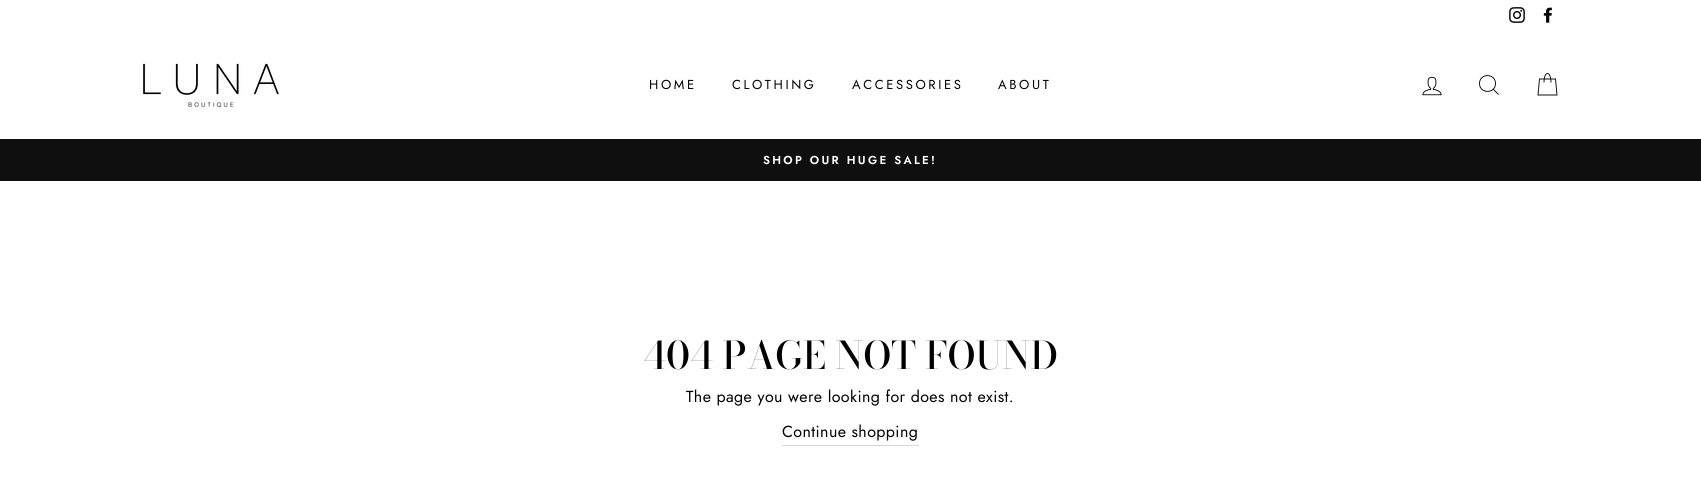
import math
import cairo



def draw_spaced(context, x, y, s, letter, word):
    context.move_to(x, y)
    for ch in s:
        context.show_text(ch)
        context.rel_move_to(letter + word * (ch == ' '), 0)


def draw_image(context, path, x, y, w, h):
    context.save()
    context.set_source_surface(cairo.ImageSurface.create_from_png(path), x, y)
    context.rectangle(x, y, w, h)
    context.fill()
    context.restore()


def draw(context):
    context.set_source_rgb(1, 1, 1)
    context.paint()
    draw_image(context, "images/1.png", 1509, 7, 16, 16)
    draw_image(context, "images/2.png", 1543, 7, 9, 16)
    draw_image(context, "images/3.png", 143, 63, 136, 45)
    draw_image(context, "images/4.png", 1422, 76, 20, 20)
    context.new_path()
    context.move_to(1495.5, 83.5)
    context.curve_to(1495.5, 94, 1479.5, 94, 1479.5, 83.5)
    context.curve_to(1479.5, 73, 1495.5, 73, 1495.5, 83.5)
    context.close_path()
    context.move_to(1498.5, 94.5)
    context.line_to(1493.5, 89.5)
    context.set_source_rgb(0, 0, 0)
    context.set_line_width(0.9)
    context.stroke()
    context.new_path()
    context.move_to(1544, 82.5)
    context.curve_to(1544, 70.5, 1551, 70.5, 1551, 82.5)
    context.move_to(1539.5, 79)
    context.line_to(1555.5, 79)
    context.line_to(1557, 95)
    context.line_to(1538, 95)
    context.close_path()
    context.stroke()
    context.set_source_rgb(15 / 255, 15 / 255, 15 / 255)
    context.rectangle(0, 139, 1701, 42)
    context.fill()
    context.set_source_rgb(217 / 255, 217 / 255, 217 / 255)
    context.rectangle(782, 445, 137, 1)
    context.fill()
    context.select_font_face("Jost")
    context.set_font_size(13)
    context.set_source_rgb(0, 0, 0)
    draw_spaced(context, 649, 89, "HOME", 2.6, 0)
    draw_spaced(context, 732, 89, "CLOTHING", 2.6, 0)
    draw_spaced(context, 852, 89, "ACCESSORIES", 2.6, 0)
    draw_spaced(context, 998, 89, "ABOUT", 2.6, 0)
    context.select_font_face("Jost SemiBold")
    context.set_font_size(11.5)
    context.set_source_rgb(1, 1, 1)
    draw_spaced(context, 763, 164, "SHOP OUR HUGE SALE!", 2.3, 0)
    context.select_font_face("Bodoni Moda Medium")
    context.set_font_size(38)
    context.set_source_rgb(0, 0, 0)
    context.move_to(643, 369)
    context.show_text("404 PAGE NOT FOUND")
    context.select_font_face("Jost")
    context.set_font_size(16)
    draw_spaced(context, 686, 402, "The page you were looking for does not exist.", 0.4, 0)
    draw_spaced(context, 782, 437, "Continue shopping", 0.4, 0)


surface = cairo.ImageSurface(cairo.Format.RGB24, 1701, 486)
context = cairo.Context(surface)
options = cairo.FontOptions()
options.set_hint_metrics(cairo.HintMetrics.OFF)
options.set_hint_style(cairo.HintStyle.NONE)
context.set_font_options(options)
context.set_miter_limit(4)
draw(context)
surface.write_to_png("out.png")
